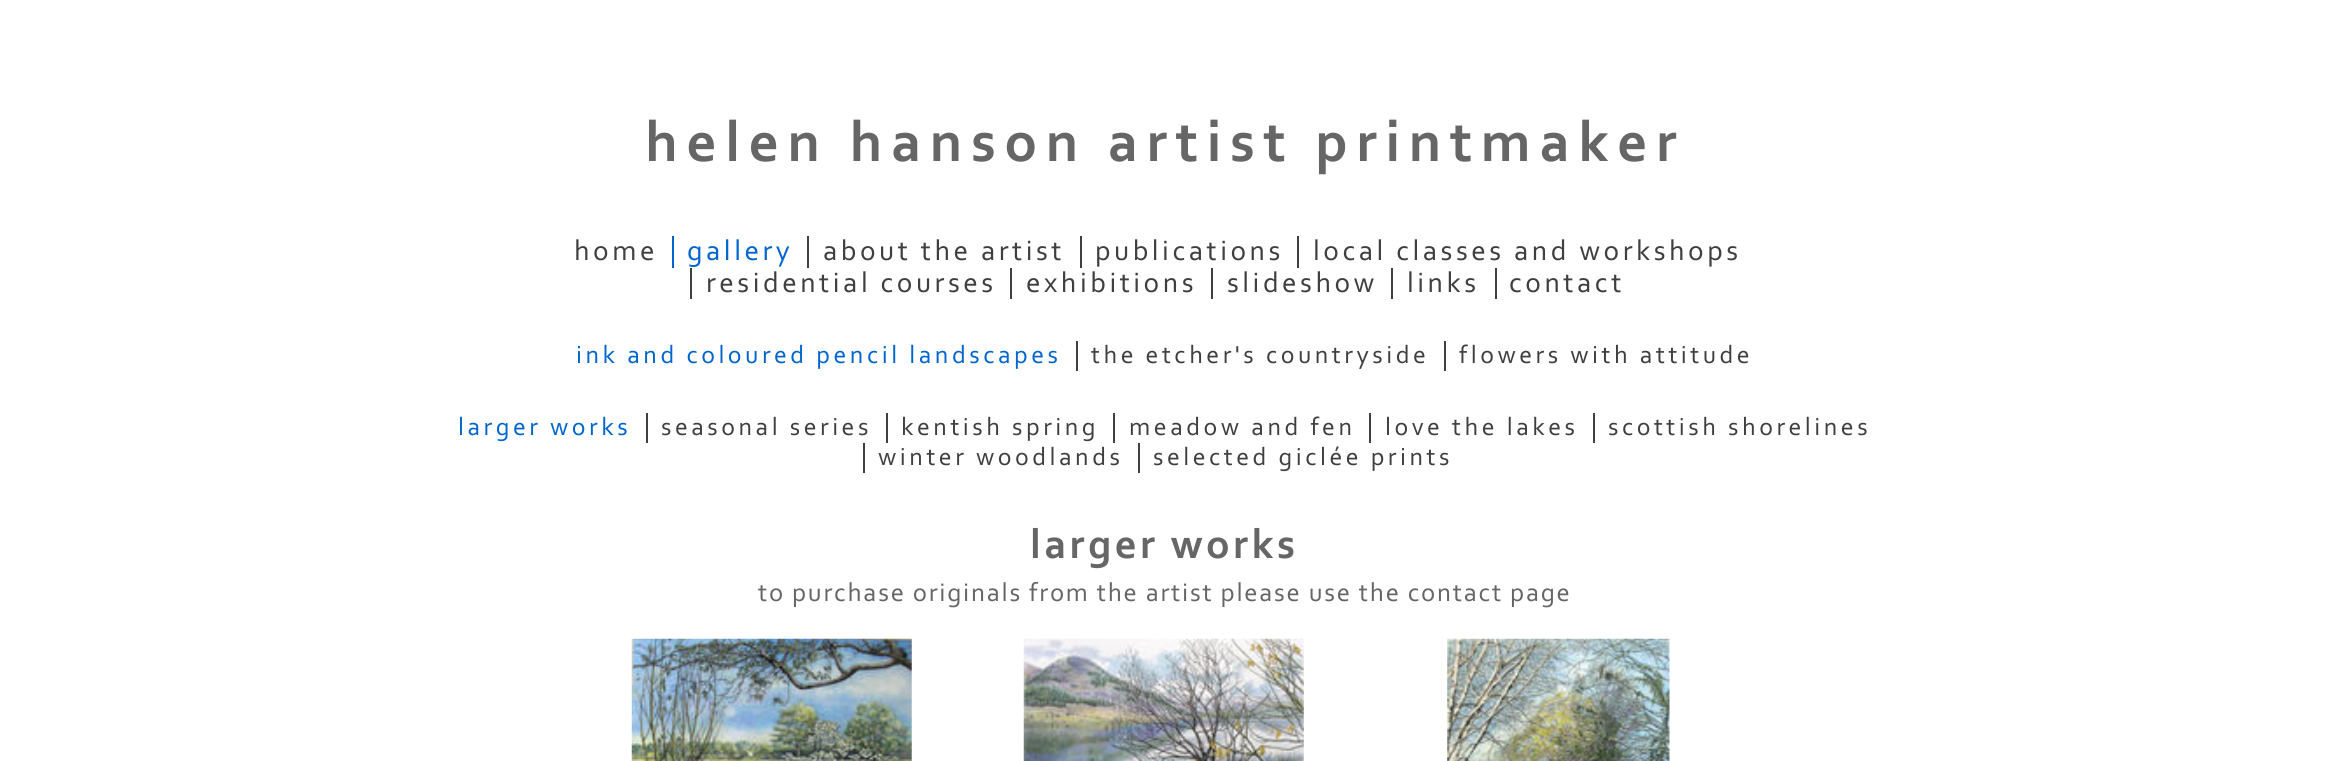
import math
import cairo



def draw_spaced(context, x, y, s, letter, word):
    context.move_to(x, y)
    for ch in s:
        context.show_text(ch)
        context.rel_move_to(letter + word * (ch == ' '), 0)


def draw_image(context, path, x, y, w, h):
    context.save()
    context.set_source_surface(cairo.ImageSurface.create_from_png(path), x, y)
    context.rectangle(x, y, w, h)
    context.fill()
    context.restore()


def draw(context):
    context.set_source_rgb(1, 1, 1)
    context.paint()
    context.set_source_rgb(0, 101 / 255, 207 / 255)
    context.rectangle(672, 236, 2, 32)
    context.fill()
    context.set_source_rgb(63 / 255, 63 / 255, 63 / 255)
    context.rectangle(807, 236, 2, 32)
    context.fill()
    context.rectangle(1080, 236, 2, 32)
    context.fill()
    context.rectangle(1297, 236, 2, 32)
    context.fill()
    context.rectangle(690, 268, 2, 31)
    context.fill()
    context.rectangle(1010, 268, 2, 31)
    context.fill()
    context.rectangle(1211, 268, 2, 31)
    context.fill()
    context.rectangle(1391, 268, 2, 31)
    context.fill()
    context.rectangle(1495, 268, 2, 31)
    context.fill()
    context.rectangle(1076, 341, 2, 30)
    context.fill()
    context.rectangle(1444, 341, 2, 30)
    context.fill()
    context.rectangle(646, 413, 2, 30)
    context.fill()
    context.rectangle(886, 413, 2, 30)
    context.fill()
    context.rectangle(1113, 413, 2, 30)
    context.fill()
    context.rectangle(1369, 413, 2, 30)
    context.fill()
    context.rectangle(1593, 413, 2, 30)
    context.fill()
    context.rectangle(863, 443, 2, 30)
    context.fill()
    context.rectangle(1138, 443, 2, 30)
    context.fill()
    draw_image(context, "images/1.png", 631, 638, 281, 123)
    draw_image(context, "images/2.png", 1023, 638, 281, 123)
    draw_image(context, "images/3.png", 1447, 638, 223, 123)
    context.select_font_face("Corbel", cairo.FontSlant.NORMAL, cairo.FontWeight.BOLD)
    context.set_font_size(58.5)
    context.set_source_rgb(102 / 255, 102 / 255, 102 / 255)
    draw_spaced(context, 645, 161, "helen hanson artist printmaker", 8.75, 0)
    context.select_font_face("Corbel")
    context.set_font_size(29.25)
    context.set_source_rgb(63 / 255, 63 / 255, 63 / 255)
    draw_spaced(context, 574, 260, "home", 3.5, 0)
    context.set_source_rgb(0, 101 / 255, 207 / 255)
    draw_spaced(context, 687, 260, "gallery", 3.5, 0)
    context.set_source_rgb(63 / 255, 63 / 255, 63 / 255)
    draw_spaced(context, 823, 260, "about the artist", 3.5, 0)
    draw_spaced(context, 1095, 260, "publications", 3.5, 0)
    draw_spaced(context, 1313, 260, "local classes and workshops", 3.5, 0)
    draw_spaced(context, 706, 292, "residential courses", 3.5, 0)
    draw_spaced(context, 1026, 292, "exhibitions", 3.5, 0)
    draw_spaced(context, 1227, 292, "slideshow", 3.5, 0)
    draw_spaced(context, 1407, 292, "links", 3.5, 0)
    draw_spaced(context, 1509, 292, "contact", 3.5, 0)
    context.set_font_size(25.75)
    context.set_source_rgb(0, 101 / 255, 207 / 255)
    draw_spaced(context, 576, 363, "ink and coloured pencil landscapes", 3.5, 0)
    context.set_source_rgb(63 / 255, 63 / 255, 63 / 255)
    draw_spaced(context, 1091, 363, "the etcher's countryside", 3.5, 0)
    draw_spaced(context, 1459, 363, "flowers with attitude", 3.5, 0)
    context.set_source_rgb(0, 101 / 255, 207 / 255)
    draw_spaced(context, 458, 435, "larger works", 3.5, 0)
    context.set_source_rgb(63 / 255, 63 / 255, 63 / 255)
    draw_spaced(context, 661, 435, "seasonal series", 3.5, 0)
    draw_spaced(context, 901, 435, "kentish spring", 3.5, 0)
    draw_spaced(context, 1129, 435, "meadow and fen", 3.5, 0)
    draw_spaced(context, 1385, 435, "love the lakes", 3.5, 0)
    draw_spaced(context, 1608, 435, "scottish shorelines", 3.5, 0)
    draw_spaced(context, 878, 465, "winter woodlands", 3.5, 0)
    draw_spaced(context, 1153, 465, "selected giclée prints", 3.5, 0)
    context.select_font_face("Corbel", cairo.FontSlant.NORMAL, cairo.FontWeight.BOLD)
    context.set_font_size(42.5)
    context.set_source_rgb(102 / 255, 102 / 255, 102 / 255)
    draw_spaced(context, 1030, 558, "larger works", 3.5, 0)
    context.select_font_face("Corbel")
    context.set_font_size(26.6)
    draw_spaced(context, 758, 601, "to purchase originals from the artist please use the contact page", 1.75, 0)


surface = cairo.ImageSurface(cairo.Format.RGB24, 2328, 761)
context = cairo.Context(surface)
options = cairo.FontOptions()
options.set_hint_metrics(cairo.HintMetrics.OFF)
options.set_hint_style(cairo.HintStyle.NONE)
context.set_font_options(options)
context.set_miter_limit(4)
draw(context)
surface.write_to_png("out.png")
